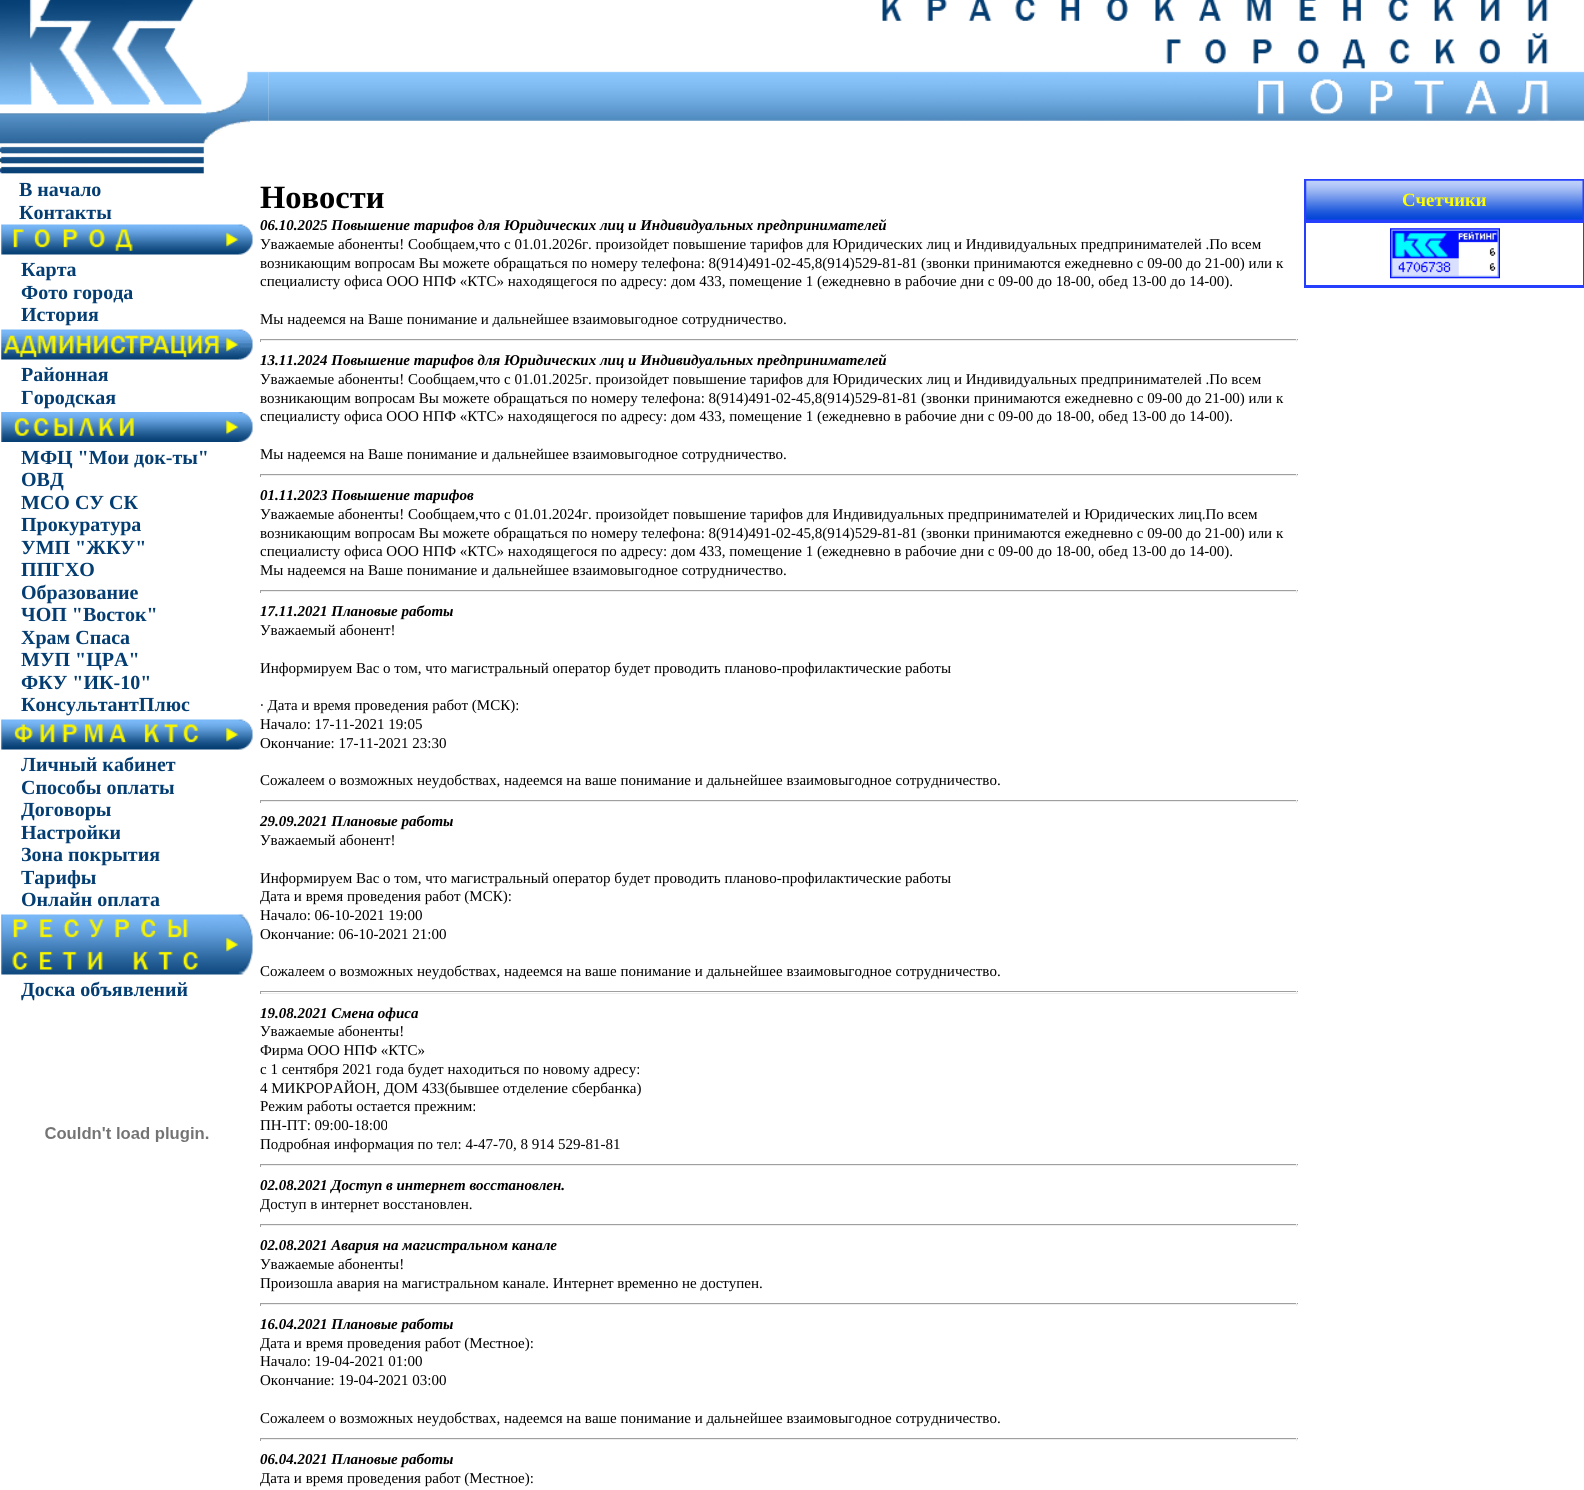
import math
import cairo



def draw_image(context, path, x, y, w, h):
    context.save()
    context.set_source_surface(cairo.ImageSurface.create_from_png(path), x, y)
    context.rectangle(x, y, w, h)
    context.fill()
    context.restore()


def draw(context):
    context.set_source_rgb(1, 1, 1)
    context.paint()
    draw_image(context, "images/1.png", 0, 0, 269, 177)
    draw_image(context, "images/2.png", 268, 71, 612, 50)
    draw_image(context, "images/3.png", 880, 0, 704, 121)
    draw_image(context, "images/4.png", 1, 224, 252, 31)
    draw_image(context, "images/5.png", 1, 329, 252, 31)
    draw_image(context, "images/6.png", 1, 412, 252, 30)
    draw_image(context, "images/7.png", 1, 719, 252, 31)
    draw_image(context, "images/8.png", 1, 914, 252, 61)
    draw_image(context, "images/9.png", 45, 1127, 164, 15)
    context.set_source_rgb(159 / 255, 159 / 255, 159 / 255)
    context.rectangle(260, 339, 1038, 1)
    context.fill()
    context.set_source_rgb(238 / 255, 238 / 255, 238 / 255)
    context.rectangle(1296, 339, 1, 3)
    context.fill()
    context.rectangle(260, 340, 1038, 1)
    context.fill()
    context.set_source_rgb(159 / 255, 159 / 255, 159 / 255)
    context.rectangle(260, 339, 1, 3)
    context.fill()
    context.rectangle(260, 474, 1038, 1)
    context.fill()
    context.set_source_rgb(238 / 255, 238 / 255, 238 / 255)
    context.rectangle(1296, 474, 1, 3)
    context.fill()
    context.rectangle(260, 475, 1038, 1)
    context.fill()
    context.set_source_rgb(159 / 255, 159 / 255, 159 / 255)
    context.rectangle(260, 474, 1, 3)
    context.fill()
    context.rectangle(260, 590, 1038, 1)
    context.fill()
    context.set_source_rgb(238 / 255, 238 / 255, 238 / 255)
    context.rectangle(1296, 590, 1, 3)
    context.fill()
    context.rectangle(260, 591, 1038, 1)
    context.fill()
    context.set_source_rgb(159 / 255, 159 / 255, 159 / 255)
    context.rectangle(260, 590, 1, 3)
    context.fill()
    context.rectangle(260, 800, 1038, 1)
    context.fill()
    context.set_source_rgb(238 / 255, 238 / 255, 238 / 255)
    context.rectangle(1296, 800, 1, 3)
    context.fill()
    context.rectangle(260, 801, 1038, 1)
    context.fill()
    context.set_source_rgb(159 / 255, 159 / 255, 159 / 255)
    context.rectangle(260, 800, 1, 3)
    context.fill()
    context.rectangle(260, 991, 1038, 1)
    context.fill()
    context.set_source_rgb(238 / 255, 238 / 255, 238 / 255)
    context.rectangle(1296, 991, 1, 3)
    context.fill()
    context.rectangle(260, 993, 1038, 1)
    context.fill()
    context.set_source_rgb(159 / 255, 159 / 255, 159 / 255)
    context.rectangle(260, 991, 1, 3)
    context.fill()
    context.rectangle(260, 1164, 1038, 1)
    context.fill()
    context.set_source_rgb(238 / 255, 238 / 255, 238 / 255)
    context.rectangle(1296, 1164, 1, 3)
    context.fill()
    context.rectangle(260, 1165, 1038, 1)
    context.fill()
    context.set_source_rgb(159 / 255, 159 / 255, 159 / 255)
    context.rectangle(260, 1164, 1, 3)
    context.fill()
    context.rectangle(260, 1224, 1038, 1)
    context.fill()
    context.set_source_rgb(238 / 255, 238 / 255, 238 / 255)
    context.rectangle(1296, 1224, 1, 3)
    context.fill()
    context.rectangle(260, 1225, 1038, 1)
    context.fill()
    context.set_source_rgb(159 / 255, 159 / 255, 159 / 255)
    context.rectangle(260, 1224, 1, 3)
    context.fill()
    context.rectangle(260, 1303, 1038, 1)
    context.fill()
    context.set_source_rgb(238 / 255, 238 / 255, 238 / 255)
    context.rectangle(1296, 1303, 1, 3)
    context.fill()
    context.rectangle(260, 1304, 1038, 1)
    context.fill()
    context.set_source_rgb(159 / 255, 159 / 255, 159 / 255)
    context.rectangle(260, 1303, 1, 3)
    context.fill()
    context.rectangle(260, 1438, 1038, 1)
    context.fill()
    context.set_source_rgb(238 / 255, 238 / 255, 238 / 255)
    context.rectangle(1296, 1438, 1, 3)
    context.fill()
    context.rectangle(260, 1439, 1038, 1)
    context.fill()
    context.set_source_rgb(159 / 255, 159 / 255, 159 / 255)
    context.rectangle(260, 1438, 1, 3)
    context.fill()
    context.set_source_rgb(37 / 255, 63 / 255, 253 / 255)
    context.rectangle(1304, 179, 280, 109)
    context.fill()
    draw_image(context, "images/10.png", 1306, 180, 277, 40)
    context.set_source_rgb(1, 1, 1)
    context.rectangle(1306, 223, 277, 62)
    context.fill()
    draw_image(context, "images/11.png", 1390, 228, 110, 51)
    context.select_font_face("Liberation Serif", cairo.FontSlant.NORMAL, cairo.FontWeight.BOLD)
    context.set_font_size(20)
    context.set_source_rgb(4 / 255, 61 / 255, 113 / 255)
    context.move_to(19, 196)
    context.show_text("В начало")
    context.move_to(19, 219)
    context.show_text("Контакты")
    context.move_to(21, 276)
    context.show_text("Карта")
    context.move_to(21, 299)
    context.show_text("Фото города")
    context.move_to(21, 321)
    context.show_text("История")
    context.move_to(21, 381)
    context.show_text("Районная")
    context.move_to(21, 404)
    context.show_text("Городская")
    context.move_to(21, 464)
    context.show_text("МФЦ \"Мои док-ты\"")
    context.move_to(21, 486)
    context.show_text("ОВД")
    context.move_to(21, 509)
    context.show_text("МСО СУ СК")
    context.move_to(21, 531)
    context.show_text("Прокуратура")
    context.move_to(21, 554)
    context.show_text("УМП \"ЖКУ\"")
    context.move_to(21, 576)
    context.show_text("ППГХО")
    context.move_to(21, 599)
    context.show_text("Образование")
    context.move_to(21, 621)
    context.show_text("ЧОП \"Восток\"")
    context.move_to(21, 644)
    context.show_text("Храм Спаса")
    context.move_to(21, 666)
    context.show_text("МУП \"ЦРА\"")
    context.move_to(21, 689)
    context.show_text("ФКУ \"ИК-10\"")
    context.move_to(21, 711)
    context.show_text("КонсультантПлюс")
    context.move_to(21, 771)
    context.show_text("Личный кабинет")
    context.move_to(21, 794)
    context.show_text("Способы оплаты")
    context.move_to(21, 816)
    context.show_text("Договоры")
    context.move_to(21, 839)
    context.show_text("Настройки")
    context.move_to(21, 861)
    context.show_text("Зона покрытия")
    context.move_to(21, 884)
    context.show_text("Тарифы")
    context.move_to(21, 906)
    context.show_text("Онлайн оплата")
    context.move_to(21, 996)
    context.show_text("Доска объявлений")
    context.set_font_size(32.5)
    context.set_source_rgb(0, 0, 0)
    context.move_to(260, 208)
    context.show_text("Новости")
    context.select_font_face("Liberation Serif", cairo.FontSlant.ITALIC, cairo.FontWeight.BOLD)
    context.set_font_size(15)
    context.move_to(260, 230)
    context.show_text("06.10.2025 Повышение тарифов для Юридических лиц и Индивидуальных предпринимателей")
    context.select_font_face("Liberation Serif")
    context.move_to(260, 249)
    context.show_text("Уважаемые абоненты! Сообщаем,что с 01.01.2026г. произойдет повышение тарифов для Юридических лиц и Индивидуальных предпринимателей .По всем")
    context.move_to(260, 268)
    context.show_text("возникающим вопросам Вы можете обращаться по номеру телефона: 8(914)491-02-45,8(914)529-81-81 (звонки принимаются ежедневно с 09-00 до 21-00) или к")
    context.move_to(260, 286)
    context.show_text("специалисту офиса ООО НПФ «КТС» находящегося по адресу: дом 433, помещение 1 (ежедневно в рабочие дни с 09-00 до 18-00, обед 13-00 до 14-00).")
    context.move_to(260, 324)
    context.show_text("Мы надеемся на Ваше понимание и дальнейшее взаимовыгодное сотрудничество.")
    context.select_font_face("Liberation Serif", cairo.FontSlant.ITALIC, cairo.FontWeight.BOLD)
    context.move_to(260, 365)
    context.show_text("13.11.2024 Повышение тарифов для Юридических лиц и Индивидуальных предпринимателей")
    context.select_font_face("Liberation Serif")
    context.move_to(260, 384)
    context.show_text("Уважаемые абоненты! Сообщаем,что с 01.01.2025г. произойдет повышение тарифов для Юридических лиц и Индивидуальных предпринимателей .По всем")
    context.move_to(260, 403)
    context.show_text("возникающим вопросам Вы можете обращаться по номеру телефона: 8(914)491-02-45,8(914)529-81-81 (звонки принимаются ежедневно с 09-00 до 21-00) или к")
    context.move_to(260, 421)
    context.show_text("специалисту офиса ООО НПФ «КТС» находящегося по адресу: дом 433, помещение 1 (ежедневно в рабочие дни с 09-00 до 18-00, обед 13-00 до 14-00).")
    context.move_to(260, 459)
    context.show_text("Мы надеемся на Ваше понимание и дальнейшее взаимовыгодное сотрудничество.")
    context.select_font_face("Liberation Serif", cairo.FontSlant.ITALIC, cairo.FontWeight.BOLD)
    context.move_to(260, 500)
    context.show_text("01.11.2023 Повышение тарифов")
    context.select_font_face("Liberation Serif")
    context.move_to(260, 519)
    context.show_text("Уважаемые абоненты! Сообщаем,что с 01.01.2024г. произойдет повышение тарифов для Индивидуальных предпринимателей и Юридических лиц.По всем")
    context.move_to(260, 538)
    context.show_text("возникающим вопросам Вы можете обращаться по номеру телефона: 8(914)491-02-45,8(914)529-81-81 (звонки принимаются ежедневно с 09-00 до 21-00) или к")
    context.move_to(260, 556)
    context.show_text("специалисту офиса ООО НПФ «КТС» находящегося по адресу: дом 433, помещение 1 (ежедневно в рабочие дни с 09-00 до 18-00, обед 13-00 до 14-00).")
    context.move_to(260, 575)
    context.show_text("Мы надеемся на Ваше понимание и дальнейшее взаимовыгодное сотрудничество.")
    context.select_font_face("Liberation Serif", cairo.FontSlant.ITALIC, cairo.FontWeight.BOLD)
    context.move_to(260, 616)
    context.show_text("17.11.2021 Плановые работы")
    context.select_font_face("Liberation Serif")
    context.move_to(260, 635)
    context.show_text("Уважаемый абонент!")
    context.move_to(260, 673)
    context.show_text("Информируем Вас о том, что магистральный оператор будет проводить планово-профилактические работы")
    context.move_to(260, 710)
    context.show_text("∙ Дата и время проведения работ (МСК):")
    context.move_to(260, 729)
    context.show_text("Начало: 17-11-2021 19:05")
    context.move_to(260, 748)
    context.show_text("Окончание: 17-11-2021 23:30")
    context.move_to(260, 785)
    context.show_text("Сожалеем о возможных неудобствах, надеемся на ваше понимание и дальнейшее взаимовыгодное сотрудничество.")
    context.select_font_face("Liberation Serif", cairo.FontSlant.ITALIC, cairo.FontWeight.BOLD)
    context.move_to(260, 826)
    context.show_text("29.09.2021 Плановые работы")
    context.select_font_face("Liberation Serif")
    context.move_to(260, 845)
    context.show_text("Уважаемый абонент!")
    context.move_to(260, 883)
    context.show_text("Информируем Вас о том, что магистральный оператор будет проводить планово-профилактические работы")
    context.move_to(260, 901)
    context.show_text("Дата и время проведения работ (МСК):")
    context.move_to(260, 920)
    context.show_text("Начало: 06-10-2021 19:00")
    context.move_to(260, 939)
    context.show_text("Окончание: 06-10-2021 21:00")
    context.move_to(260, 976)
    context.show_text("Сожалеем о возможных неудобствах, надеемся на ваше понимание и дальнейшее взаимовыгодное сотрудничество.")
    context.select_font_face("Liberation Serif", cairo.FontSlant.ITALIC, cairo.FontWeight.BOLD)
    context.move_to(260, 1018)
    context.show_text("19.08.2021 Смена офиса")
    context.select_font_face("Liberation Serif")
    context.move_to(260, 1036)
    context.show_text("Уважаемые абоненты!")
    context.move_to(260, 1055)
    context.show_text("Фирма ООО НПФ «КТС»")
    context.move_to(260, 1074)
    context.show_text("с 1 сентября 2021 года будет находиться по новому адресу:")
    context.move_to(260, 1093)
    context.show_text("4 МИКРОРАЙОН, ДОМ 433(бывшее отделение сбербанка)")
    context.move_to(260, 1111)
    context.show_text("Режим работы остается прежним:")
    context.move_to(260, 1130)
    context.show_text("ПН-ПТ: 09:00-18:00")
    context.move_to(260, 1149)
    context.show_text("Подробная информация по тел: 4-47-70, 8 914 529-81-81")
    context.select_font_face("Liberation Serif", cairo.FontSlant.ITALIC, cairo.FontWeight.BOLD)
    context.move_to(260, 1190)
    context.show_text("02.08.2021 Доступ в интернет восстановлен.")
    context.select_font_face("Liberation Serif")
    context.move_to(260, 1209)
    context.show_text("Доступ в интернет восстановлен.")
    context.select_font_face("Liberation Serif", cairo.FontSlant.ITALIC, cairo.FontWeight.BOLD)
    context.move_to(260, 1250)
    context.show_text("02.08.2021 Авария на магистральном канале")
    context.select_font_face("Liberation Serif")
    context.move_to(260, 1269)
    context.show_text("Уважаемые абоненты!")
    context.move_to(260, 1288)
    context.show_text("Произошла авария на магистральном канале. Интернет временно не доступен.")
    context.select_font_face("Liberation Serif", cairo.FontSlant.ITALIC, cairo.FontWeight.BOLD)
    context.move_to(260, 1329)
    context.show_text("16.04.2021 Плановые работы")
    context.select_font_face("Liberation Serif")
    context.move_to(260, 1348)
    context.show_text("Дата и время проведения работ (Местное):")
    context.move_to(260, 1366)
    context.show_text("Начало: 19-04-2021 01:00")
    context.move_to(260, 1385)
    context.show_text("Окончание: 19-04-2021 03:00")
    context.move_to(260, 1423)
    context.show_text("Сожалеем о возможных неудобствах, надеемся на ваше понимание и дальнейшее взаимовыгодное сотрудничество.")
    context.select_font_face("Liberation Serif", cairo.FontSlant.ITALIC, cairo.FontWeight.BOLD)
    context.move_to(260, 1464)
    context.show_text("06.04.2021 Плановые работы")
    context.select_font_face("Liberation Serif")
    context.move_to(260, 1483)
    context.show_text("Дата и время проведения работ (Местное):")
    context.select_font_face("Liberation Serif", cairo.FontSlant.NORMAL, cairo.FontWeight.BOLD)
    context.set_font_size(18.75)
    context.set_source_rgb(1, 1, 0)
    context.move_to(1402, 206)
    context.show_text("Счетчики")


surface = cairo.ImageSurface(cairo.Format.RGB24, 1584, 1490)
context = cairo.Context(surface)
options = cairo.FontOptions()
options.set_hint_metrics(cairo.HintMetrics.OFF)
options.set_hint_style(cairo.HintStyle.NONE)
context.set_font_options(options)
context.set_miter_limit(4)
draw(context)
surface.write_to_png("out.png")
